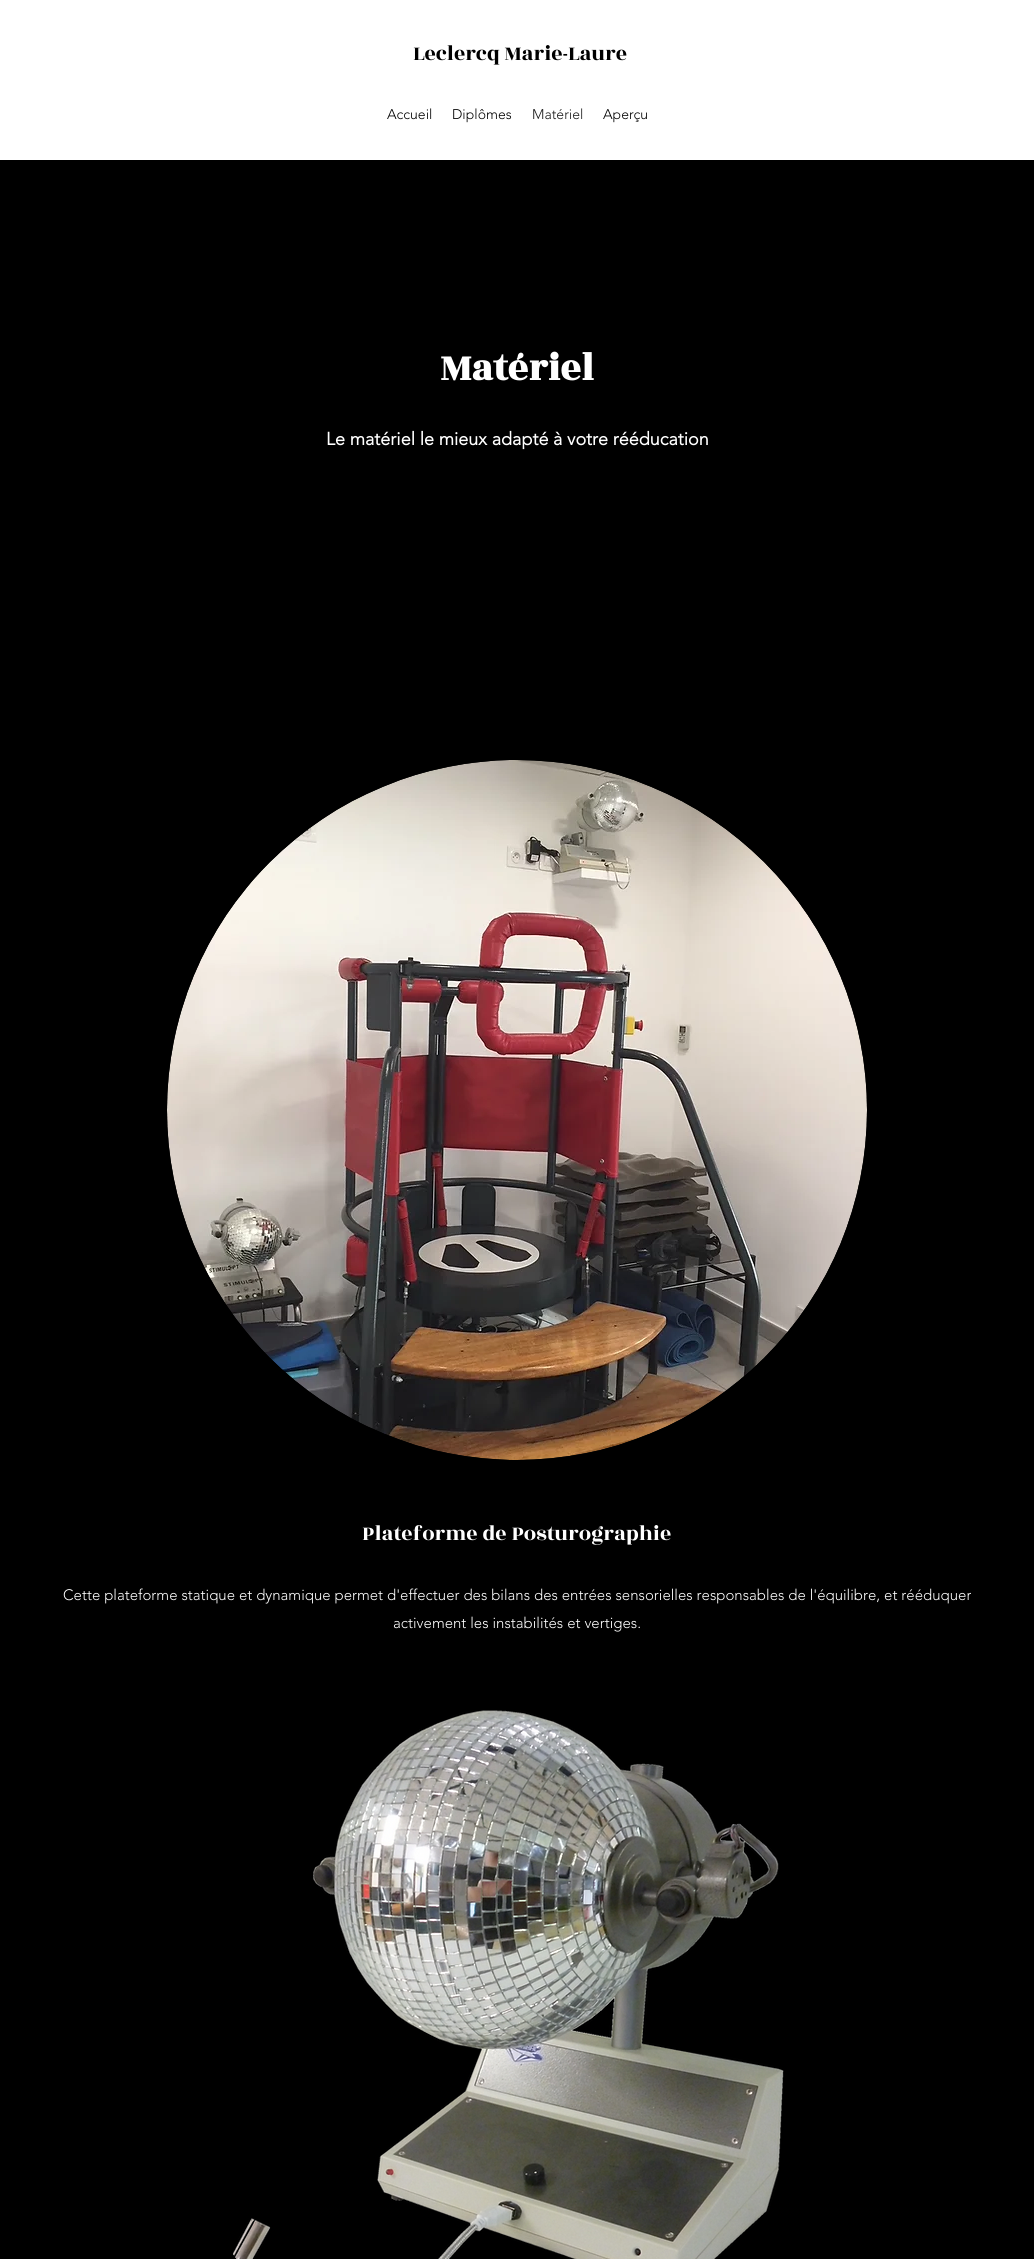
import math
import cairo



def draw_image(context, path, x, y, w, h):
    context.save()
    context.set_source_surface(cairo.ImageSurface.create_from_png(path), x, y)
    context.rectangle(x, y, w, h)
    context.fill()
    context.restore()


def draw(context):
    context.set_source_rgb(1, 1, 1)
    context.paint()
    context.set_source_rgb(0, 0, 0)
    context.rectangle(0, 160, 1034, 2099)
    context.fill()
    draw_image(context, "images/1.png", 167, 760, 700, 700)
    draw_image(context, "images/2.png", 233, 1710, 551, 549)
    context.select_font_face("Rozha One")
    context.set_font_size(22)
    context.move_to(413, 60)
    context.show_text("Leclercq Marie-Laure")
    context.select_font_face("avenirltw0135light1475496 Light")
    context.set_font_size(14)
    context.move_to(387, 119)
    context.show_text("Accueil")
    context.move_to(452, 119)
    context.show_text("Diplômes")
    context.set_source_rgb(25 / 255, 25 / 255, 25 / 255)
    context.move_to(532, 119)
    context.show_text("Matériel")
    context.set_source_rgb(0, 0, 0)
    context.move_to(603, 119)
    context.show_text("Aperçu")
    context.select_font_face("Rozha One", cairo.FontSlant.NORMAL, cairo.FontWeight.BOLD)
    context.set_font_size(40)
    context.set_source_rgb(1, 1, 1)
    context.move_to(440, 380)
    context.show_text("Matériel")
    context.select_font_face("avenirltw0135light1475496", cairo.FontSlant.NORMAL, cairo.FontWeight.BOLD)
    context.set_font_size(18)
    context.move_to(326, 445)
    context.show_text("Le matériel le mieux adapté à votre rééducation")
    context.select_font_face("Rozha One")
    context.set_font_size(22)
    context.move_to(362, 1540)
    context.show_text("Plateforme de Posturographie")
    context.select_font_face("avenirltw0135light1475496 Light")
    context.set_font_size(15)
    context.move_to(63, 1600)
    context.show_text("Cette plateforme statique et dynamique permet d'effectuer des bilans des entrées sensorielles responsables de l'équilibre, et rééduquer")
    context.move_to(393, 1628)
    context.show_text("activement les instabilités et vertiges.")


surface = cairo.ImageSurface(cairo.Format.RGB24, 1034, 2259)
context = cairo.Context(surface)
options = cairo.FontOptions()
options.set_hint_metrics(cairo.HintMetrics.OFF)
options.set_hint_style(cairo.HintStyle.NONE)
context.set_font_options(options)
context.set_miter_limit(4)
draw(context)
surface.write_to_png("out.png")
